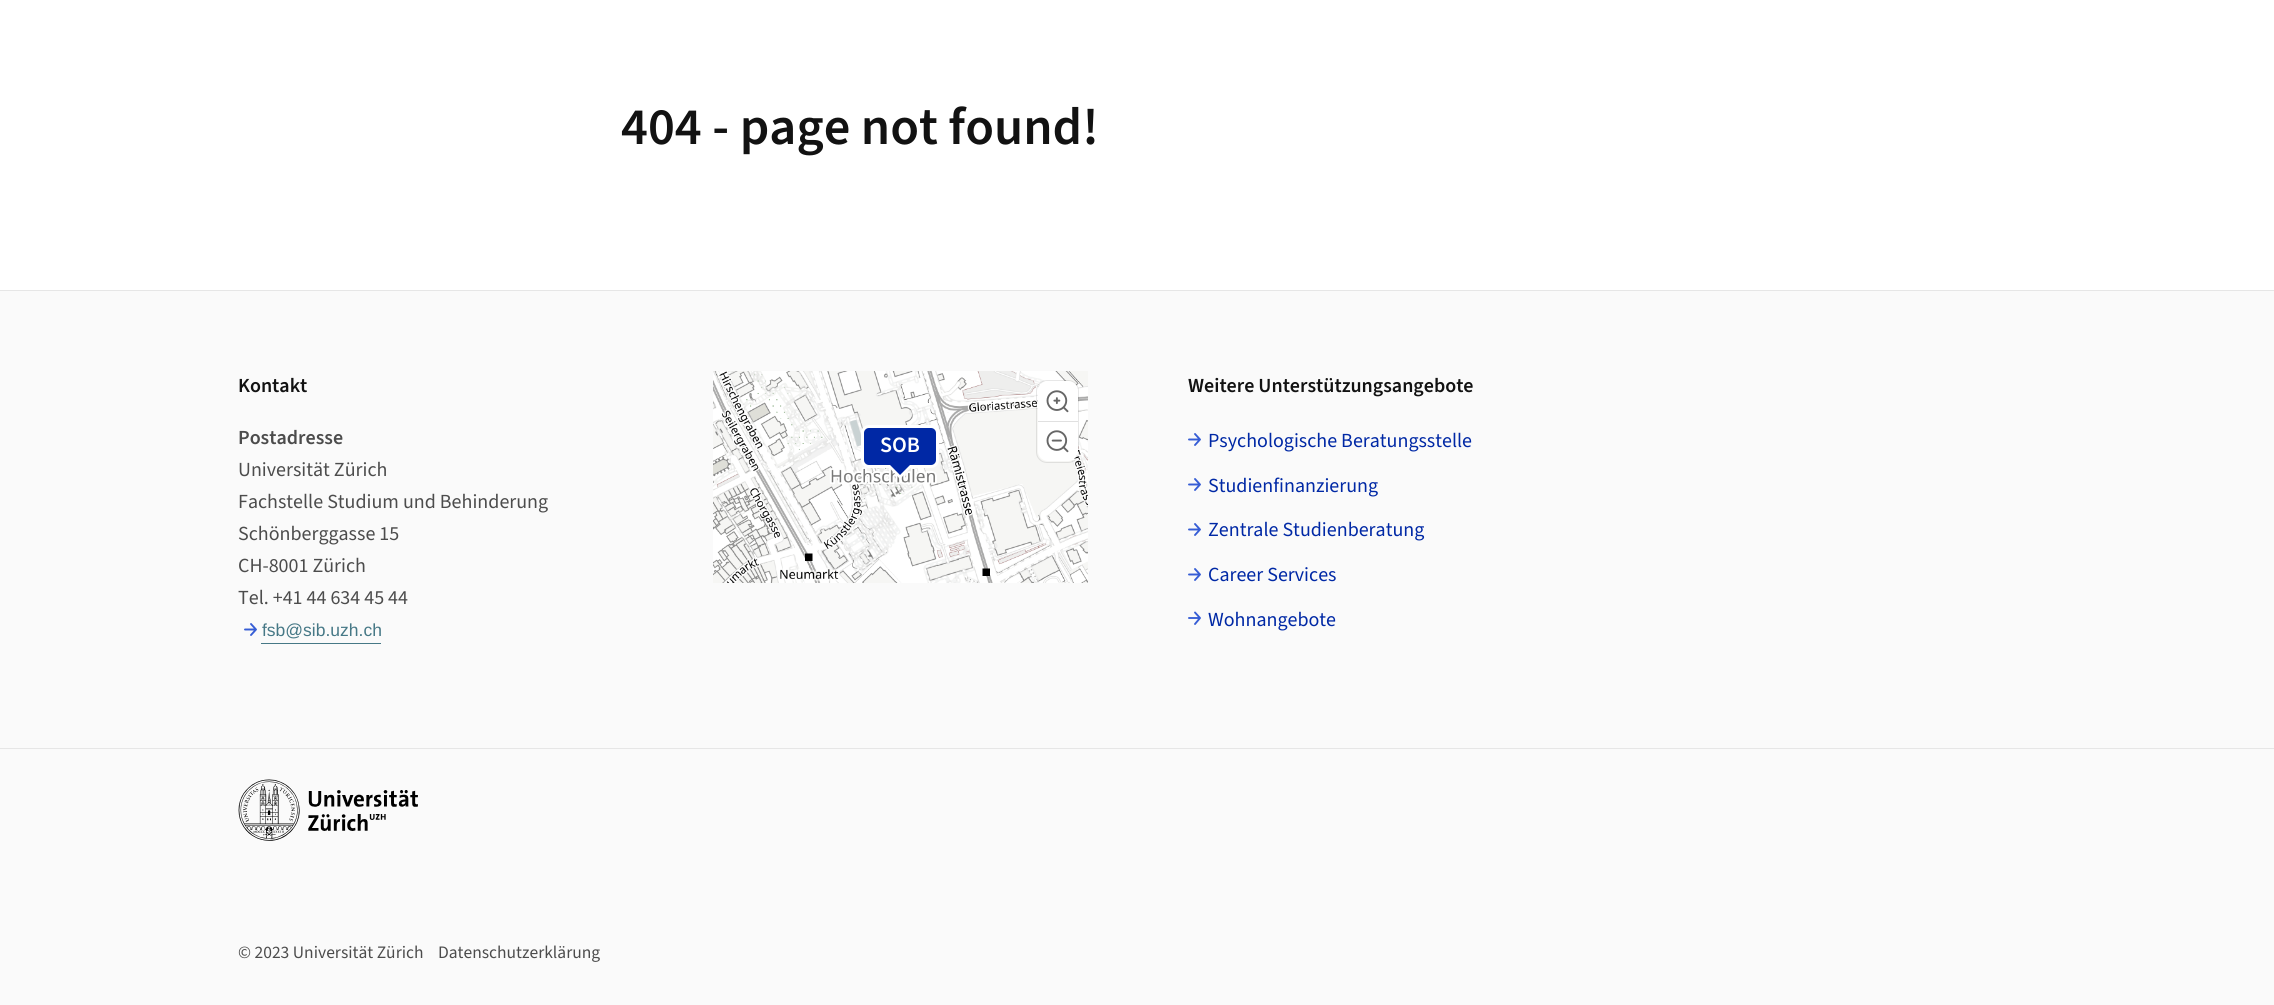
import math
import cairo



def rounded_rect(context, x, y, w, h, r):
    context.new_sub_path()
    for i, (u, v) in enumerate([(x + w - r, y + h - r), (x + r, y + h - r), (x + r, y + r), (x + w - r, y + r)]):
        context.arc(u, v, r, i * math.pi / 2, (i + 1) * math.pi / 2)
    context.close_path()


def draw_image(context, path, x, y, w, h):
    context.save()
    context.set_source_surface(cairo.ImageSurface.create_from_png(path), x, y)
    context.rectangle(x, y, w, h)
    context.fill()
    context.restore()


def draw(context):
    context.set_source_rgb(1, 1, 1)
    context.paint()
    context.set_source_rgb(250 / 255, 250 / 255, 250 / 255)
    context.rectangle(0, 291, 2274, 714)
    context.fill()
    context.set_source_rgb(230 / 255, 230 / 255, 230 / 255)
    context.rectangle(0, 290, 2274, 1)
    context.fill()
    context.new_path()
    context.move_to(251, 624)
    context.line_to(256, 629.5)
    context.move_to(256, 629.5)
    context.line_to(251, 635)
    context.move_to(256, 629.5)
    context.line_to(245, 629.5)
    context.set_source_rgb(54 / 255, 93 / 255, 213 / 255)
    context.set_line_width(1.9)
    context.set_line_cap(cairo.LineCap.ROUND)
    context.set_line_join(cairo.LineJoin.ROUND)
    context.stroke()
    context.set_source_rgb(70 / 255, 120 / 255, 134 / 255)
    context.rectangle(261, 643, 120, 1)
    context.fill()
    draw_image(context, "images/1.png", 713, 371, 98, 212)
    draw_image(context, "images/2.png", 811, 371, 277, 212)
    rounded_rect(context, 862.5, 426.5, 75, 40, 6.5)
    context.set_source_rgb(1, 1, 1)
    context.set_line_width(3)
    context.set_line_cap(cairo.LineCap.BUTT)
    context.set_line_join(cairo.LineJoin.MITER)
    context.stroke()
    context.set_source_rgb(0, 40 / 255, 165 / 255)
    rounded_rect(context, 864, 428, 72, 37, 5)
    context.fill()
    context.set_source_rgb(1, 1, 1)
    context.new_path()
    context.move_to(889, 467.5)
    context.line_to(911, 467.5)
    context.line_to(900, 479)
    context.close_path()
    context.fill()
    context.set_source_rgb(0, 40 / 255, 165 / 255)
    context.new_path()
    context.move_to(889, 464)
    context.line_to(911, 464)
    context.line_to(900, 475)
    context.close_path()
    context.fill()
    rounded_rect(context, 1036.5, 380.5, 42, 82, 10.5)
    context.set_source_rgba(18 / 255, 18 / 255, 18 / 255, 0.1)
    context.set_line_width(1)
    context.stroke()
    context.set_source_rgb(1, 1, 1)
    context.new_path()
    context.move_to(1048, 381)
    context.line_to(1068, 381)
    context.curve_to(1073.5, 381, 1078, 385.5, 1078, 391)
    context.line_to(1078, 421)
    context.line_to(1038, 421)
    context.line_to(1038, 391)
    context.curve_to(1038, 385.5, 1042.5, 381, 1048, 381)
    context.close_path()
    context.fill()
    draw_image(context, "images/3.png", 1046, 390, 23, 23)
    context.new_path()
    context.move_to(1038, 421)
    context.line_to(1078, 421)
    context.line_to(1078, 451)
    context.curve_to(1078, 456.5, 1073.5, 461, 1068, 461)
    context.line_to(1048, 461)
    context.curve_to(1042.5, 461, 1038, 456.5, 1038, 451)
    context.close_path()
    context.fill()
    draw_image(context, "images/4.png", 1046, 430, 23, 23)
    context.set_source_rgb(224 / 255, 224 / 255, 224 / 255)
    context.rectangle(1038, 421, 40, 1)
    context.fill()
    context.new_path()
    context.move_to(1195, 434)
    context.line_to(1200, 439.5)
    context.move_to(1200, 439.5)
    context.line_to(1195, 445)
    context.move_to(1200, 439.5)
    context.line_to(1189, 439.5)
    context.set_source_rgb(54 / 255, 93 / 255, 213 / 255)
    context.set_line_width(1.9)
    context.set_line_cap(cairo.LineCap.ROUND)
    context.set_line_join(cairo.LineJoin.ROUND)
    context.stroke()
    context.new_path()
    context.move_to(1195, 479)
    context.line_to(1200, 484.5)
    context.move_to(1200, 484.5)
    context.line_to(1195, 490)
    context.move_to(1200, 484.5)
    context.line_to(1189, 484.5)
    context.stroke()
    context.new_path()
    context.move_to(1195, 524)
    context.line_to(1200, 529.5)
    context.move_to(1200, 529.5)
    context.line_to(1195, 535)
    context.move_to(1200, 529.5)
    context.line_to(1189, 529.5)
    context.stroke()
    context.new_path()
    context.move_to(1195, 569)
    context.line_to(1200, 574.5)
    context.move_to(1200, 574.5)
    context.line_to(1195, 580)
    context.move_to(1200, 574.5)
    context.line_to(1189, 574.5)
    context.stroke()
    context.new_path()
    context.move_to(1195, 612.5)
    context.line_to(1200, 618)
    context.move_to(1200, 618)
    context.line_to(1195, 624)
    context.move_to(1200, 618)
    context.line_to(1189, 618)
    context.stroke()
    context.set_source_rgb(230 / 255, 230 / 255, 230 / 255)
    context.rectangle(0, 748, 2274, 1)
    context.fill()
    draw_image(context, "images/5.png", 238, 779, 180, 62)
    context.select_font_face("Source Sans 3 SemiBold")
    context.set_font_size(52.5)
    context.set_source_rgb(18 / 255, 18 / 255, 18 / 255)
    context.move_to(621, 144)
    context.show_text("404 - page not found!")
    context.set_font_size(20)
    context.move_to(238, 392)
    context.show_text("Kontakt")
    context.set_source_rgb(76 / 255, 76 / 255, 76 / 255)
    context.move_to(238, 444)
    context.show_text("Postadresse")
    context.select_font_face("Source Sans 3")
    context.move_to(238, 476)
    context.show_text("Universität Zürich")
    context.move_to(238, 508)
    context.show_text("Fachstelle Studium und Behinderung")
    context.move_to(238, 540)
    context.show_text("Schönberggasse 15")
    context.move_to(238, 572)
    context.show_text("CH-8001 Zürich")
    context.move_to(238, 604)
    context.show_text("Tel. +41 44 634 45 44")
    context.select_font_face("Liberation Sans")
    context.set_font_size(17.5)
    context.set_source_rgb(70 / 255, 120 / 255, 134 / 255)
    context.move_to(262, 636)
    context.show_text("fsb@sib.uzh.ch")
    context.select_font_face("Source Sans 3 SemiBold")
    context.set_font_size(22)
    context.set_source_rgb(1, 1, 1)
    context.move_to(880, 452)
    context.show_text("SOB")
    context.set_font_size(20)
    context.set_source_rgb(18 / 255, 18 / 255, 18 / 255)
    context.move_to(1188, 392)
    context.show_text("Weitere Unterstützungsangebote")
    context.select_font_face("Source Sans 3")
    context.set_source_rgb(0, 40 / 255, 165 / 255)
    context.move_to(1208, 447)
    context.show_text("Psychologische Beratungsstelle")
    context.move_to(1208, 492)
    context.show_text("Studienfinanzierung")
    context.move_to(1208, 536)
    context.show_text("Zentrale Studienberatung")
    context.move_to(1208, 581)
    context.show_text("Career Services")
    context.move_to(1208, 626)
    context.show_text("Wohnangebote")
    context.set_font_size(17.5)
    context.set_source_rgb(76 / 255, 76 / 255, 76 / 255)
    context.move_to(238, 958)
    context.show_text("© 2023 Universität Zürich")
    context.move_to(438, 958)
    context.show_text("Datenschutzerklärung")


surface = cairo.ImageSurface(cairo.Format.RGB24, 2274, 1005)
context = cairo.Context(surface)
options = cairo.FontOptions()
options.set_hint_metrics(cairo.HintMetrics.OFF)
options.set_hint_style(cairo.HintStyle.NONE)
context.set_font_options(options)
context.set_miter_limit(4)
draw(context)
surface.write_to_png("out.png")
